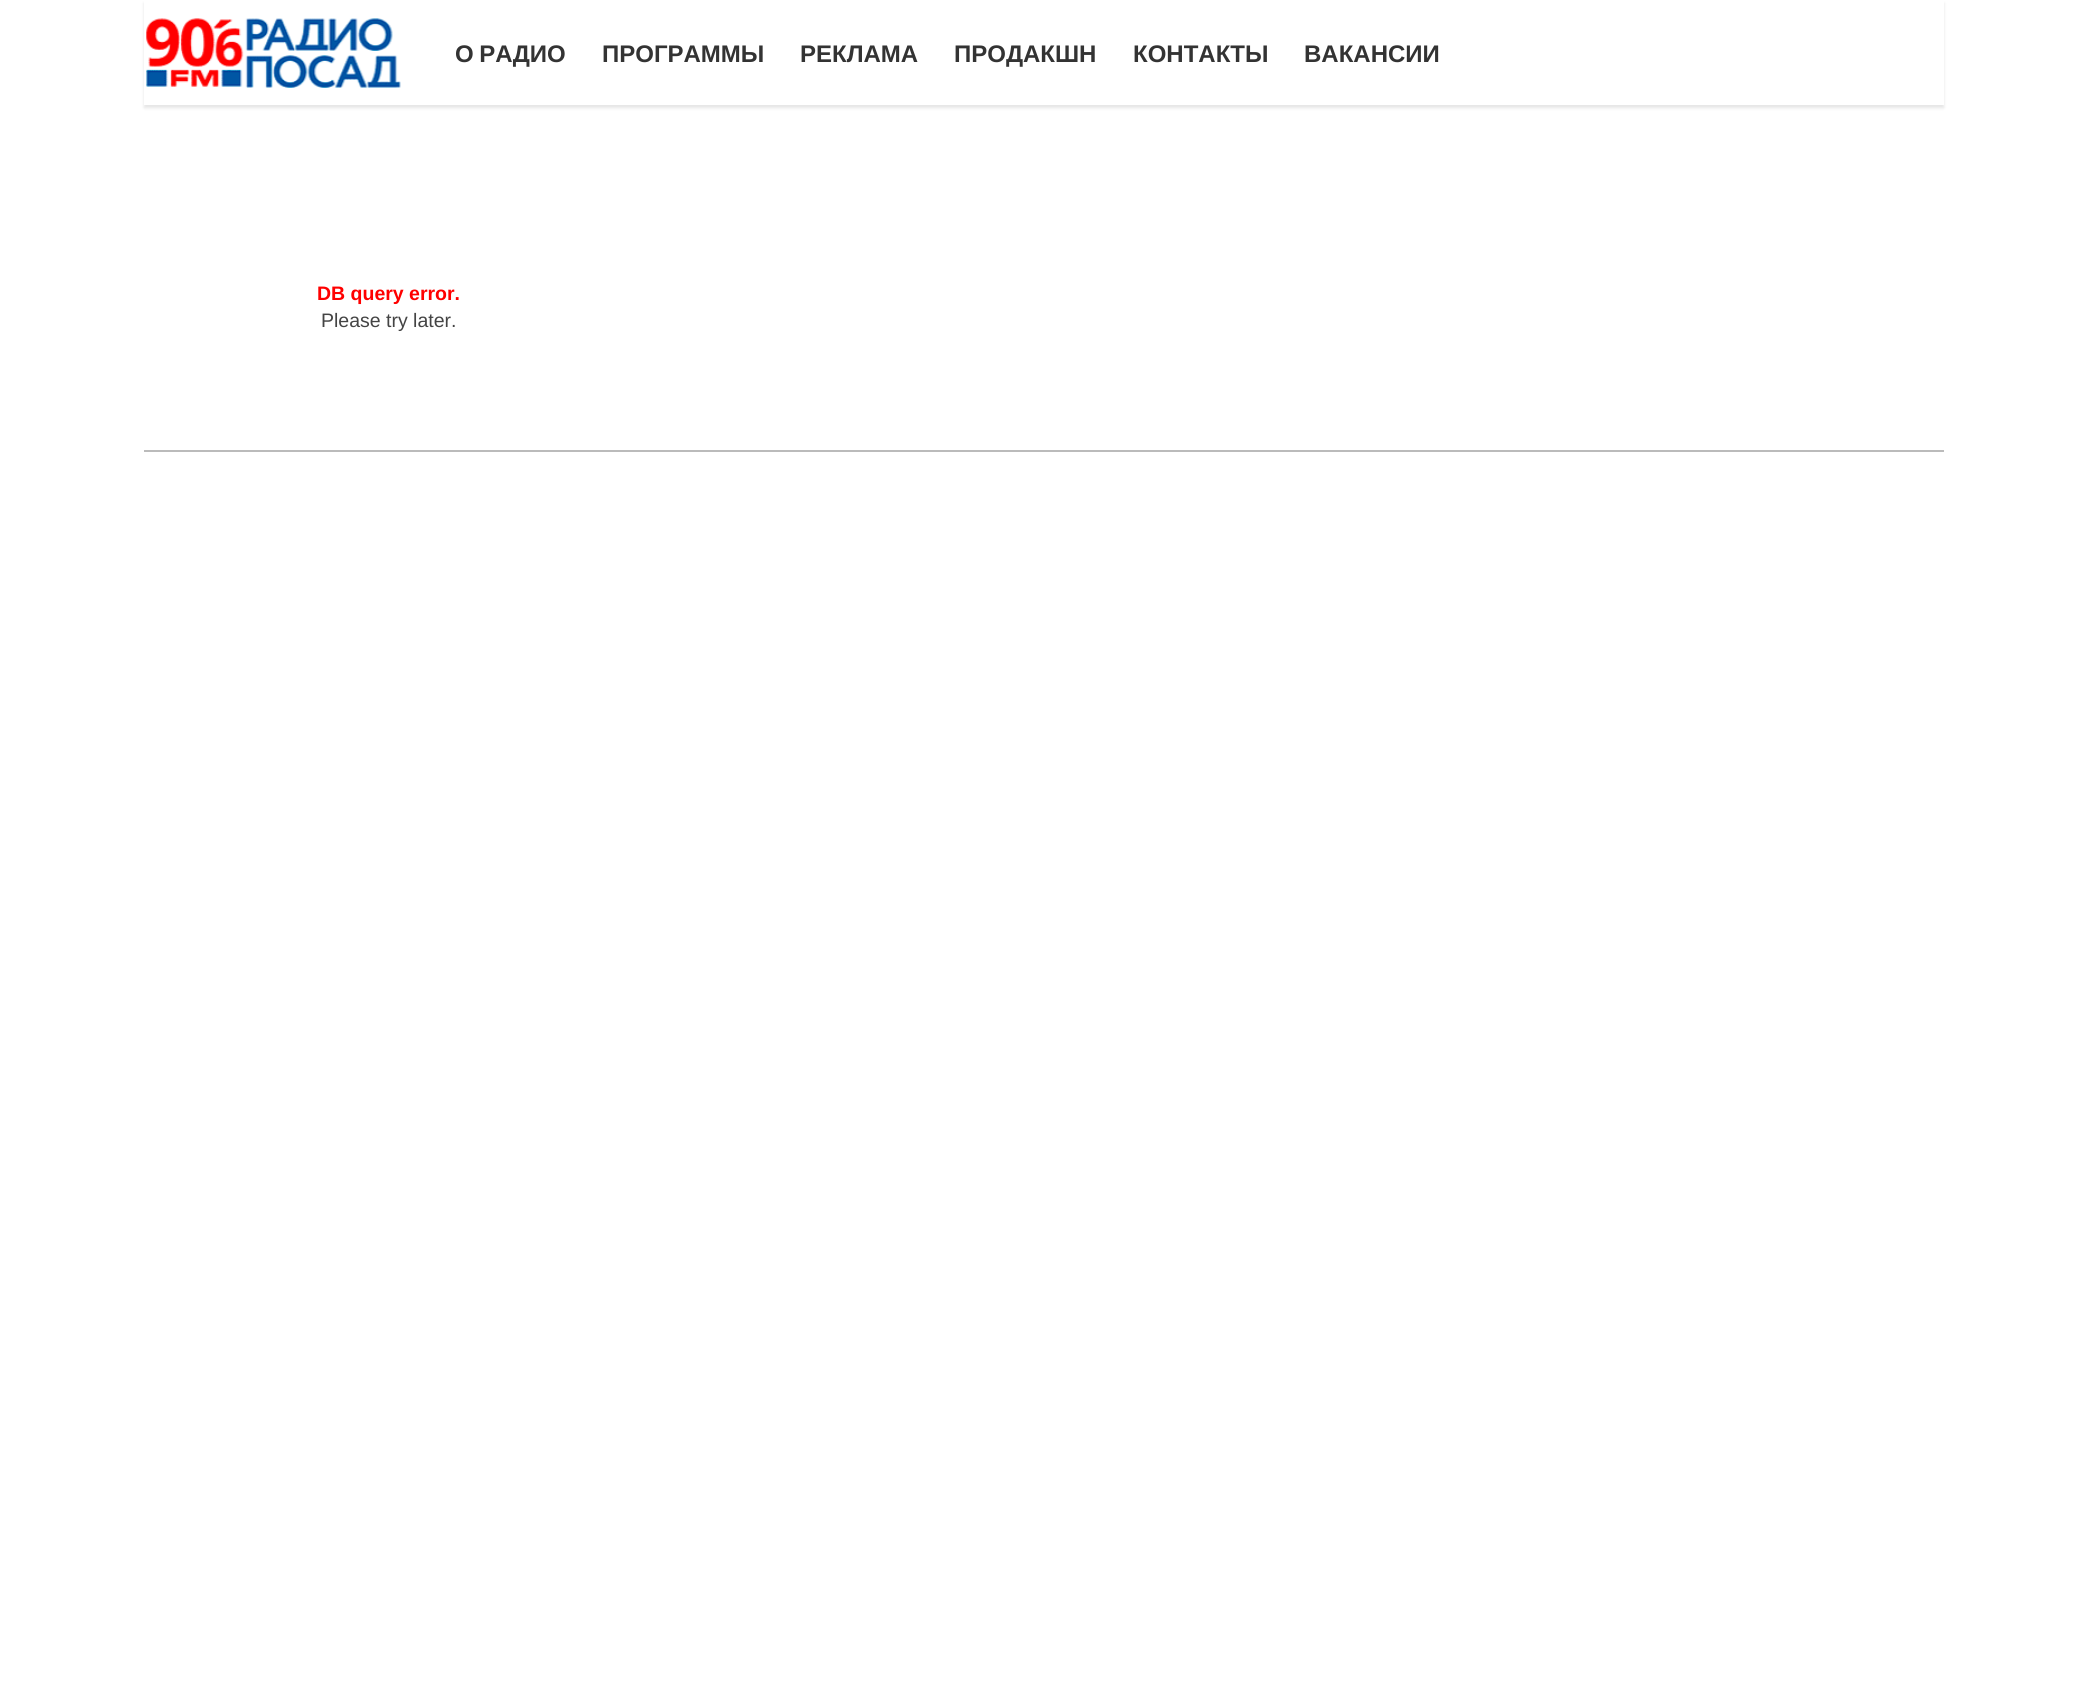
import math
import cairo



def draw_spaced(context, x, y, s, letter, word):
    context.move_to(x, y)
    for ch in s:
        context.show_text(ch)
        context.rel_move_to(letter + word * (ch == ' '), 0)


def rounded_rect(context, x, y, w, h, r):
    context.new_sub_path()
    for i, (u, v) in enumerate([(x + w - r, y + h - r), (x + r, y + h - r), (x + r, y + r), (x + w - r, y + r)]):
        context.arc(u, v, r, i * math.pi / 2, (i + 1) * math.pi / 2)
    context.close_path()


def draw_shadow(context, x, y, w, h, r, blur, alpha):
    context.push_group_with_content(cairo.Content.ALPHA)
    context.set_operator(cairo.Operator.SOURCE)
    for i in range(15, -16, -2):
        e = blur * i / 6
        if min(w, h) + 2 * e > 0:
            context.set_source_rgba(0, 0, 0, alpha * math.erfc((i - 1) / 8.5) / 2)
            rounded_rect(context, x - e, y - e, w + 2 * e, h + 2 * e, max(0, min(r + e + blur * .6, min(w, h) / 2 + e)))
            context.fill()
    context.mask(context.pop_group())


def draw_image(context, path, x, y, w, h):
    context.save()
    context.set_source_surface(cairo.ImageSurface.create_from_png(path), x, y)
    context.rectangle(x, y, w, h)
    context.fill()
    context.restore()


def draw(context):
    context.set_source_rgb(1, 1, 1)
    context.paint()
    context.save()
    context.set_fill_rule(cairo.FillRule.EVEN_ODD)
    context.new_path()
    context.move_to(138, 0)
    context.line_to(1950, 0)
    context.line_to(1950, 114)
    context.line_to(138, 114)
    context.close_path()
    context.move_to(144, 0)
    context.line_to(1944, 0)
    context.line_to(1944, 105)
    context.line_to(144, 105)
    context.close_path()
    context.clip()
    context.set_source_rgb(0, 0, 0)
    draw_shadow(context, 144, 3, 1800, 105, 0, 1.5, 0.1)
    context.restore()
    draw_image(context, "images/1.png", 146, 18, 255, 70)
    context.set_source_rgb(187 / 255, 187 / 255, 187 / 255)
    context.rectangle(144, 450, 1800, 2)
    context.fill()
    context.select_font_face("Liberation Sans", cairo.FontSlant.NORMAL, cairo.FontWeight.BOLD)
    context.set_font_size(24)
    context.set_source_rgb(51 / 255, 51 / 255, 51 / 255)
    draw_spaced(context, 455, 62, "О РАДИО", 0, -1)
    context.move_to(602, 62)
    context.show_text("ПРОГРАММЫ")
    context.move_to(800, 62)
    context.show_text("РЕКЛАМА")
    context.move_to(954, 62)
    context.show_text("ПРОДАКШН")
    context.move_to(1133, 62)
    context.show_text("КОНТАКТЫ")
    context.move_to(1304, 62)
    context.show_text("ВАКАНСИИ")
    context.set_font_size(19.5)
    context.set_source_rgb(1, 0, 0)
    context.move_to(317, 300)
    context.show_text("DB query error.")
    context.select_font_face("Liberation Sans")
    context.set_source_rgb(68 / 255, 68 / 255, 68 / 255)
    context.move_to(321, 327)
    context.show_text("Please try later.")


surface = cairo.ImageSurface(cairo.Format.RGB24, 2087, 1707)
context = cairo.Context(surface)
options = cairo.FontOptions()
options.set_hint_metrics(cairo.HintMetrics.OFF)
options.set_hint_style(cairo.HintStyle.NONE)
context.set_font_options(options)
context.set_miter_limit(4)
draw(context)
surface.write_to_png("out.png")
